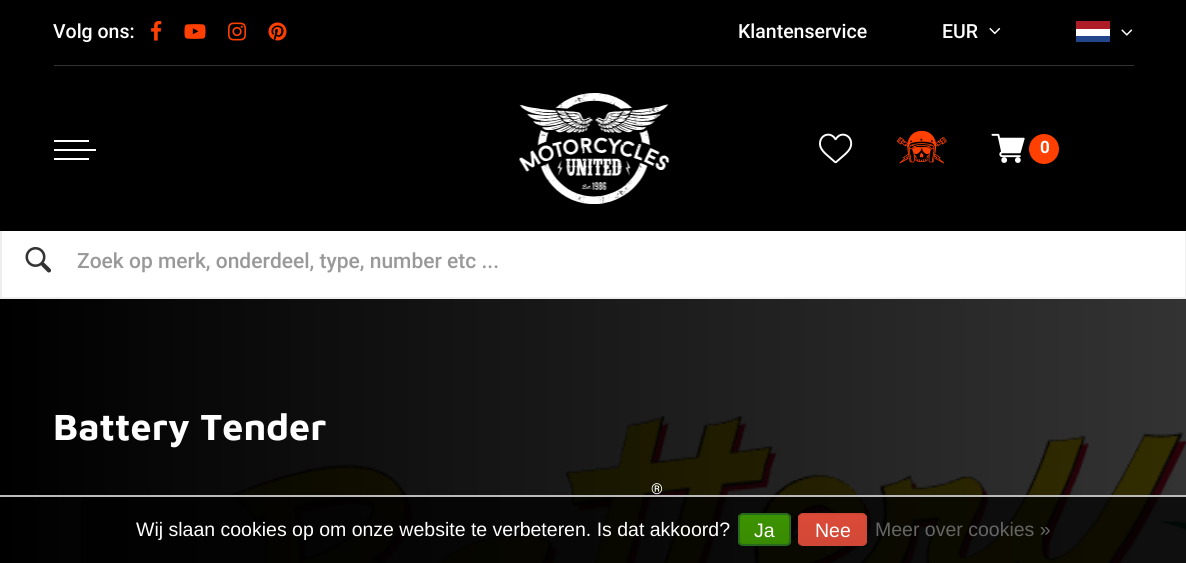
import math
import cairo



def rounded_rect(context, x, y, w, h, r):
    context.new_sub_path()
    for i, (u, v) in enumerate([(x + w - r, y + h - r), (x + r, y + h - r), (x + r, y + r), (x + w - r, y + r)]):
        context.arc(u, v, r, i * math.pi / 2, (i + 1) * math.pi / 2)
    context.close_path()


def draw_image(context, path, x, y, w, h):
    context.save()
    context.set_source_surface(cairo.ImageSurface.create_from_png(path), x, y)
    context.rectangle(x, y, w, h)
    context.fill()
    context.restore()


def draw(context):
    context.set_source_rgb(0, 0, 0)
    context.paint()
    context.set_source_rgb(51 / 255, 51 / 255, 51 / 255)
    context.rectangle(54, 65, 1080, 1)
    context.fill()
    draw_image(context, "images/1.png", 151, 21, 11, 20)
    draw_image(context, "images/2.png", 184, 24, 22, 15)
    draw_image(context, "images/3.png", 228, 22, 18, 19)
    draw_image(context, "images/4.png", 268, 22, 19, 19)
    draw_image(context, "images/5.png", 989, 27, 12, 8)
    context.set_source_rgb(33 / 255, 70 / 255, 139 / 255)
    context.rectangle(1076, 36, 34, 6)
    context.fill()
    context.set_source_rgb(1, 1, 1)
    context.rectangle(1076, 29, 34, 7)
    context.fill()
    context.set_source_rgb(174 / 255, 28 / 255, 40 / 255)
    context.rectangle(1076, 21, 34, 8)
    context.fill()
    draw_image(context, "images/6.png", 1121, 29, 12, 7)
    context.set_source_rgb(238 / 255, 238 / 255, 238 / 255)
    context.rectangle(1185, 224, 1, 75)
    context.fill()
    context.rectangle(0, 297, 1186, 2)
    context.fill()
    context.rectangle(0, 224, 2, 75)
    context.fill()
    context.set_source_rgb(0, 0, 0)
    context.rectangle(0, 224, 1186, 7)
    context.fill()
    context.set_source_rgb(1, 1, 1)
    context.rectangle(54, 140, 35, 2)
    context.fill()
    context.rectangle(54, 149, 42, 2)
    context.fill()
    context.rectangle(54, 158, 35, 2)
    context.fill()
    draw_image(context, "images/7.png", 519, 93, 151, 111)
    draw_image(context, "images/8.png", 819, 133, 34, 31)
    draw_image(context, "images/9.png", 897, 130, 50, 34)
    draw_image(context, "images/10.png", 991, 133, 34, 30)
    context.set_source_rgb(1, 64 / 255, 0)
    context.arc(1044, 149, 15, 0, 2 * math.pi)
    context.fill()
    context.set_source_rgb(1, 1, 1)
    context.rectangle(2, 231, 1183, 66)
    context.fill()
    draw_image(context, "images/11.png", 25, 247, 26, 26)
    draw_image(context, "images/12.png", 0, 299, 1186, 264)
    context.set_source_rgba(0, 0, 0, 0.7)
    context.rectangle(81, 497, 1105, 66)
    context.fill()
    context.set_source_rgb(187 / 255, 187 / 255, 187 / 255)
    context.rectangle(0, 495, 1186, 2)
    context.fill()
    context.save()
    rounded_rect(context, 738, 513, 53, 33, 5)
    context.clip()
    gradient = cairo.LinearGradient(764, 515, 764, 545)
    gradient.add_color_stop_rgba(0, 60 / 255, 147 / 255, 0, 1)
    gradient.add_color_stop_rgba(1, 57 / 255, 138 / 255, 0, 1)
    context.set_source(gradient)
    context.rectangle(738, 515, 53, 30)
    context.fill()
    context.restore()
    rounded_rect(context, 739, 514, 51, 31, 4)
    context.set_source_rgb(41 / 255, 105 / 255, 29 / 255)
    context.stroke()
    context.save()
    rounded_rect(context, 798, 513, 69, 33, 5)
    context.clip()
    gradient = cairo.LinearGradient(833, 515, 833, 545)
    gradient.add_color_stop_rgba(0, 220 / 255, 74 / 255, 56 / 255, 1)
    gradient.add_color_stop_rgba(1, 209 / 255, 72 / 255, 54 / 255, 1)
    context.set_source(gradient)
    context.rectangle(798, 515, 69, 30)
    context.fill()
    context.restore()
    rounded_rect(context, 799, 514, 67, 31, 4)
    context.set_source_rgb(209 / 255, 72 / 255, 54 / 255)
    context.stroke()
    context.select_font_face("Roboto Medium")
    context.set_font_size(19.5)
    context.set_source_rgb(1, 1, 1)
    context.move_to(53, 38)
    context.show_text("Volg ons:")
    context.move_to(738, 38)
    context.show_text("Klantenservice")
    context.move_to(942, 38)
    context.show_text("EUR")
    context.select_font_face("Roboto", cairo.FontSlant.NORMAL, cairo.FontWeight.BOLD)
    context.set_font_size(17)
    context.move_to(1040, 153)
    context.show_text("0")
    context.select_font_face("Roboto Medium")
    context.set_font_size(21)
    context.set_source_rgb(153 / 255, 153 / 255, 153 / 255)
    context.move_to(77, 268)
    context.show_text("Zoek op merk, onderdeel, type, number etc ...")
    context.select_font_face("Maven Pro", cairo.FontSlant.NORMAL, cairo.FontWeight.BOLD)
    context.set_font_size(37.5)
    context.set_source_rgb(1, 1, 1)
    context.move_to(53, 440)
    context.show_text("Battery Tender")
    context.select_font_face("Roboto")
    context.set_font_size(15)
    context.move_to(651, 494)
    context.show_text("®")
    context.select_font_face("Liberation Sans")
    context.set_font_size(19.5)
    context.move_to(136, 536)
    context.show_text("Wij slaan cookies op om onze website te verbeteren. Is dat akkoord?")
    context.move_to(754, 537)
    context.show_text("Ja")
    context.move_to(815, 537)
    context.show_text("Nee")
    context.set_source_rgb(102 / 255, 102 / 255, 102 / 255)
    context.move_to(875, 536)
    context.show_text("Meer over cookies »")


surface = cairo.ImageSurface(cairo.Format.RGB24, 1186, 563)
context = cairo.Context(surface)
options = cairo.FontOptions()
options.set_hint_metrics(cairo.HintMetrics.OFF)
options.set_hint_style(cairo.HintStyle.NONE)
context.set_font_options(options)
context.set_miter_limit(4)
draw(context)
surface.write_to_png("out.png")
